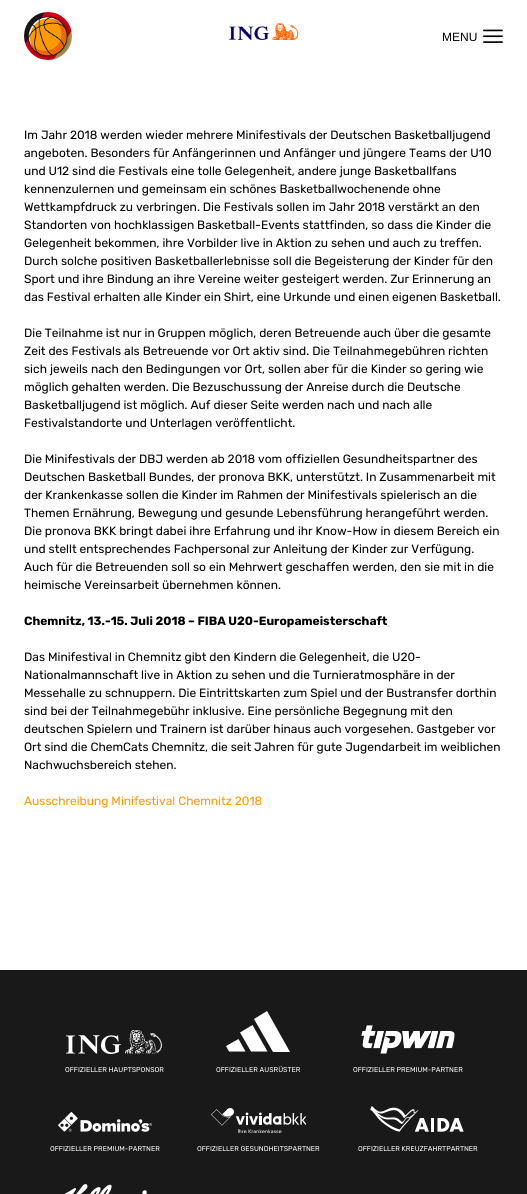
import math
import cairo



def draw_image(context, path, x, y, w, h):
    context.save()
    context.set_source_surface(cairo.ImageSurface.create_from_png(path), x, y)
    context.rectangle(x, y, w, h)
    context.fill()
    context.restore()


def draw(context):
    context.set_source_rgb(1, 1, 1)
    context.paint()
    draw_image(context, "images/1.png", 24, 12, 48, 48)
    draw_image(context, "images/2.png", 228, 23, 71, 17)
    draw_image(context, "images/3.png", 483, 29, 20, 14)
    context.set_source_rgb(25 / 255, 25 / 255, 25 / 255)
    context.rectangle(0, 970, 527, 224)
    context.fill()
    draw_image(context, "images/4.png", 66, 1030, 96, 24)
    context.set_source_rgb(1, 1, 1)
    context.new_path()
    context.move_to(290, 1052)
    context.line_to(267, 1011)
    context.line_to(254, 1019)
    context.line_to(273, 1052)
    context.close_path()
    context.fill()
    context.new_path()
    context.move_to(267.5, 1051.5)
    context.line_to(252.5, 1025)
    context.line_to(240, 1032.5)
    context.line_to(251, 1051.5)
    context.close_path()
    context.fill()
    context.new_path()
    context.move_to(245.5, 1051.5)
    context.line_to(238.5, 1039)
    context.line_to(226, 1046)
    context.line_to(229, 1051.5)
    context.close_path()
    context.fill()
    draw_image(context, "images/5.png", 361, 1025, 94, 29)
    draw_image(context, "images/6.png", 58, 1112, 94, 20)
    draw_image(context, "images/7.png", 211, 1108, 95, 25)
    draw_image(context, "images/8.png", 370, 1106, 94, 26)
    draw_image(context, "images/9.png", 64, 1184, 83, 10)
    context.select_font_face("Liberation Sans")
    context.set_font_size(12)
    context.set_source_rgb(0, 0, 0)
    context.move_to(442, 41)
    context.show_text("MENU")
    context.select_font_face("Rubik Light")
    context.move_to(24, 139)
    context.show_text("Im Jahr 2018 werden wieder mehrere Minifestivals der Deutschen Basketballjugend")
    context.move_to(24, 157)
    context.show_text("angeboten. Besonders für Anfängerinnen und Anfänger und jüngere Teams der U10")
    context.move_to(24, 175)
    context.show_text("und U12 sind die Festivals eine tolle Gelegenheit, andere junge Basketballfans")
    context.move_to(24, 193)
    context.show_text("kennenzulernen und gemeinsam ein schönes Basketballwochenende ohne")
    context.move_to(24, 211)
    context.show_text("Wettkampfdruck zu verbringen. Die Festivals sollen im Jahr 2018 verstärkt an den")
    context.move_to(24, 229)
    context.show_text("Standorten von hochklassigen Basketball-Events stattfinden, so dass die Kinder die")
    context.move_to(24, 247)
    context.show_text("Gelegenheit bekommen, ihre Vorbilder live in Aktion zu sehen und auch zu treffen.")
    context.move_to(24, 265)
    context.show_text("Durch solche positiven Basketballerlebnisse soll die Begeisterung der Kinder für den")
    context.move_to(24, 283)
    context.show_text("Sport und ihre Bindung an ihre Vereine weiter gesteigert werden. Zur Erinnerung an")
    context.move_to(24, 301)
    context.show_text("das Festival erhalten alle Kinder ein Shirt, eine Urkunde und einen eigenen Basketball.")
    context.move_to(24, 337)
    context.show_text("Die Teilnahme ist nur in Gruppen möglich, deren Betreuende auch über die gesamte")
    context.move_to(24, 355)
    context.show_text("Zeit des Festivals als Betreuende vor Ort aktiv sind. Die Teilnahmegebühren richten")
    context.move_to(24, 373)
    context.show_text("sich jeweils nach den Bedingungen vor Ort, sollen aber für die Kinder so gering wie")
    context.move_to(24, 391)
    context.show_text("möglich gehalten werden. Die Bezuschussung der Anreise durch die Deutsche")
    context.move_to(24, 409)
    context.show_text("Basketballjugend ist möglich. Auf dieser Seite werden nach und nach alle")
    context.move_to(24, 427)
    context.show_text("Festivalstandorte und Unterlagen veröffentlicht.")
    context.move_to(24, 463)
    context.show_text("Die Minifestivals der DBJ werden ab 2018 vom offiziellen Gesundheitspartner des")
    context.move_to(24, 481)
    context.show_text("Deutschen Basketball Bundes, der pronova BKK, unterstützt. In Zusammenarbeit mit")
    context.move_to(24, 499)
    context.show_text("der Krankenkasse sollen die Kinder im Rahmen der Minifestivals spielerisch an die")
    context.move_to(24, 517)
    context.show_text("Themen Ernährung, Bewegung und gesunde Lebensführung herangeführt werden.")
    context.move_to(24, 535)
    context.show_text("Die pronova BKK bringt dabei ihre Erfahrung und ihr Know-How in diesem Bereich ein")
    context.move_to(24, 553)
    context.show_text("und stellt entsprechendes Fachpersonal zur Anleitung der Kinder zur Verfügung.")
    context.move_to(24, 571)
    context.show_text("Auch für die Betreuenden soll so ein Mehrwert geschaffen werden, den sie mit in die")
    context.move_to(24, 589)
    context.show_text("heimische Vereinsarbeit übernehmen können.")
    context.select_font_face("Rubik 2 Light")
    context.move_to(24, 625)
    context.show_text("Chemnitz, 13.-15. Juli 2018 – FIBA U20-Europameisterschaft")
    context.select_font_face("Rubik Light")
    context.move_to(24, 661)
    context.show_text("Das Minifestival in Chemnitz gibt den Kindern die Gelegenheit, die U20-")
    context.move_to(24, 679)
    context.show_text("Nationalmannschaft live in Aktion zu sehen und die Turnieratmosphäre in der")
    context.move_to(24, 697)
    context.show_text("Messehalle zu schnuppern. Die Eintrittskarten zum Spiel und der Bustransfer dorthin")
    context.move_to(24, 715)
    context.show_text("sind bei der Teilnahmegebühr inklusive. Eine persönliche Begegnung mit den")
    context.move_to(24, 733)
    context.show_text("deutschen Spielern und Trainern ist darüber hinaus auch vorgesehen. Gastgeber vor")
    context.move_to(24, 751)
    context.show_text("Ort sind die ChemCats Chemnitz, die seit Jahren für gute Jugendarbeit im weiblichen")
    context.move_to(24, 769)
    context.show_text("Nachwuchsbereich stehen.")
    context.set_source_rgb(1, 153 / 255, 0)
    context.move_to(24, 805)
    context.show_text("Ausschreibung Minifestival Chemnitz 2018")
    context.set_font_size(7)
    context.set_source_rgb(1, 1, 1)
    context.move_to(65, 1072)
    context.show_text("OFFIZIELLER HAUPTSPONSOR")
    context.move_to(216, 1072)
    context.show_text("OFFIZIELLER AUSRÜSTER")
    context.move_to(353, 1072)
    context.show_text("OFFIZIELLER PREMIUM-PARTNER")
    context.move_to(50, 1151)
    context.show_text("OFFIZIELLER PREMIUM-PARTNER")
    context.move_to(197, 1151)
    context.show_text("OFFIZIELLER GESUNDHEITSPARTNER")
    context.move_to(358, 1151)
    context.show_text("OFFIZIELLER KREUZFAHRTPARTNER")


surface = cairo.ImageSurface(cairo.Format.RGB24, 527, 1194)
context = cairo.Context(surface)
options = cairo.FontOptions()
options.set_hint_metrics(cairo.HintMetrics.OFF)
options.set_hint_style(cairo.HintStyle.NONE)
context.set_font_options(options)
context.set_miter_limit(4)
draw(context)
surface.write_to_png("out.png")
